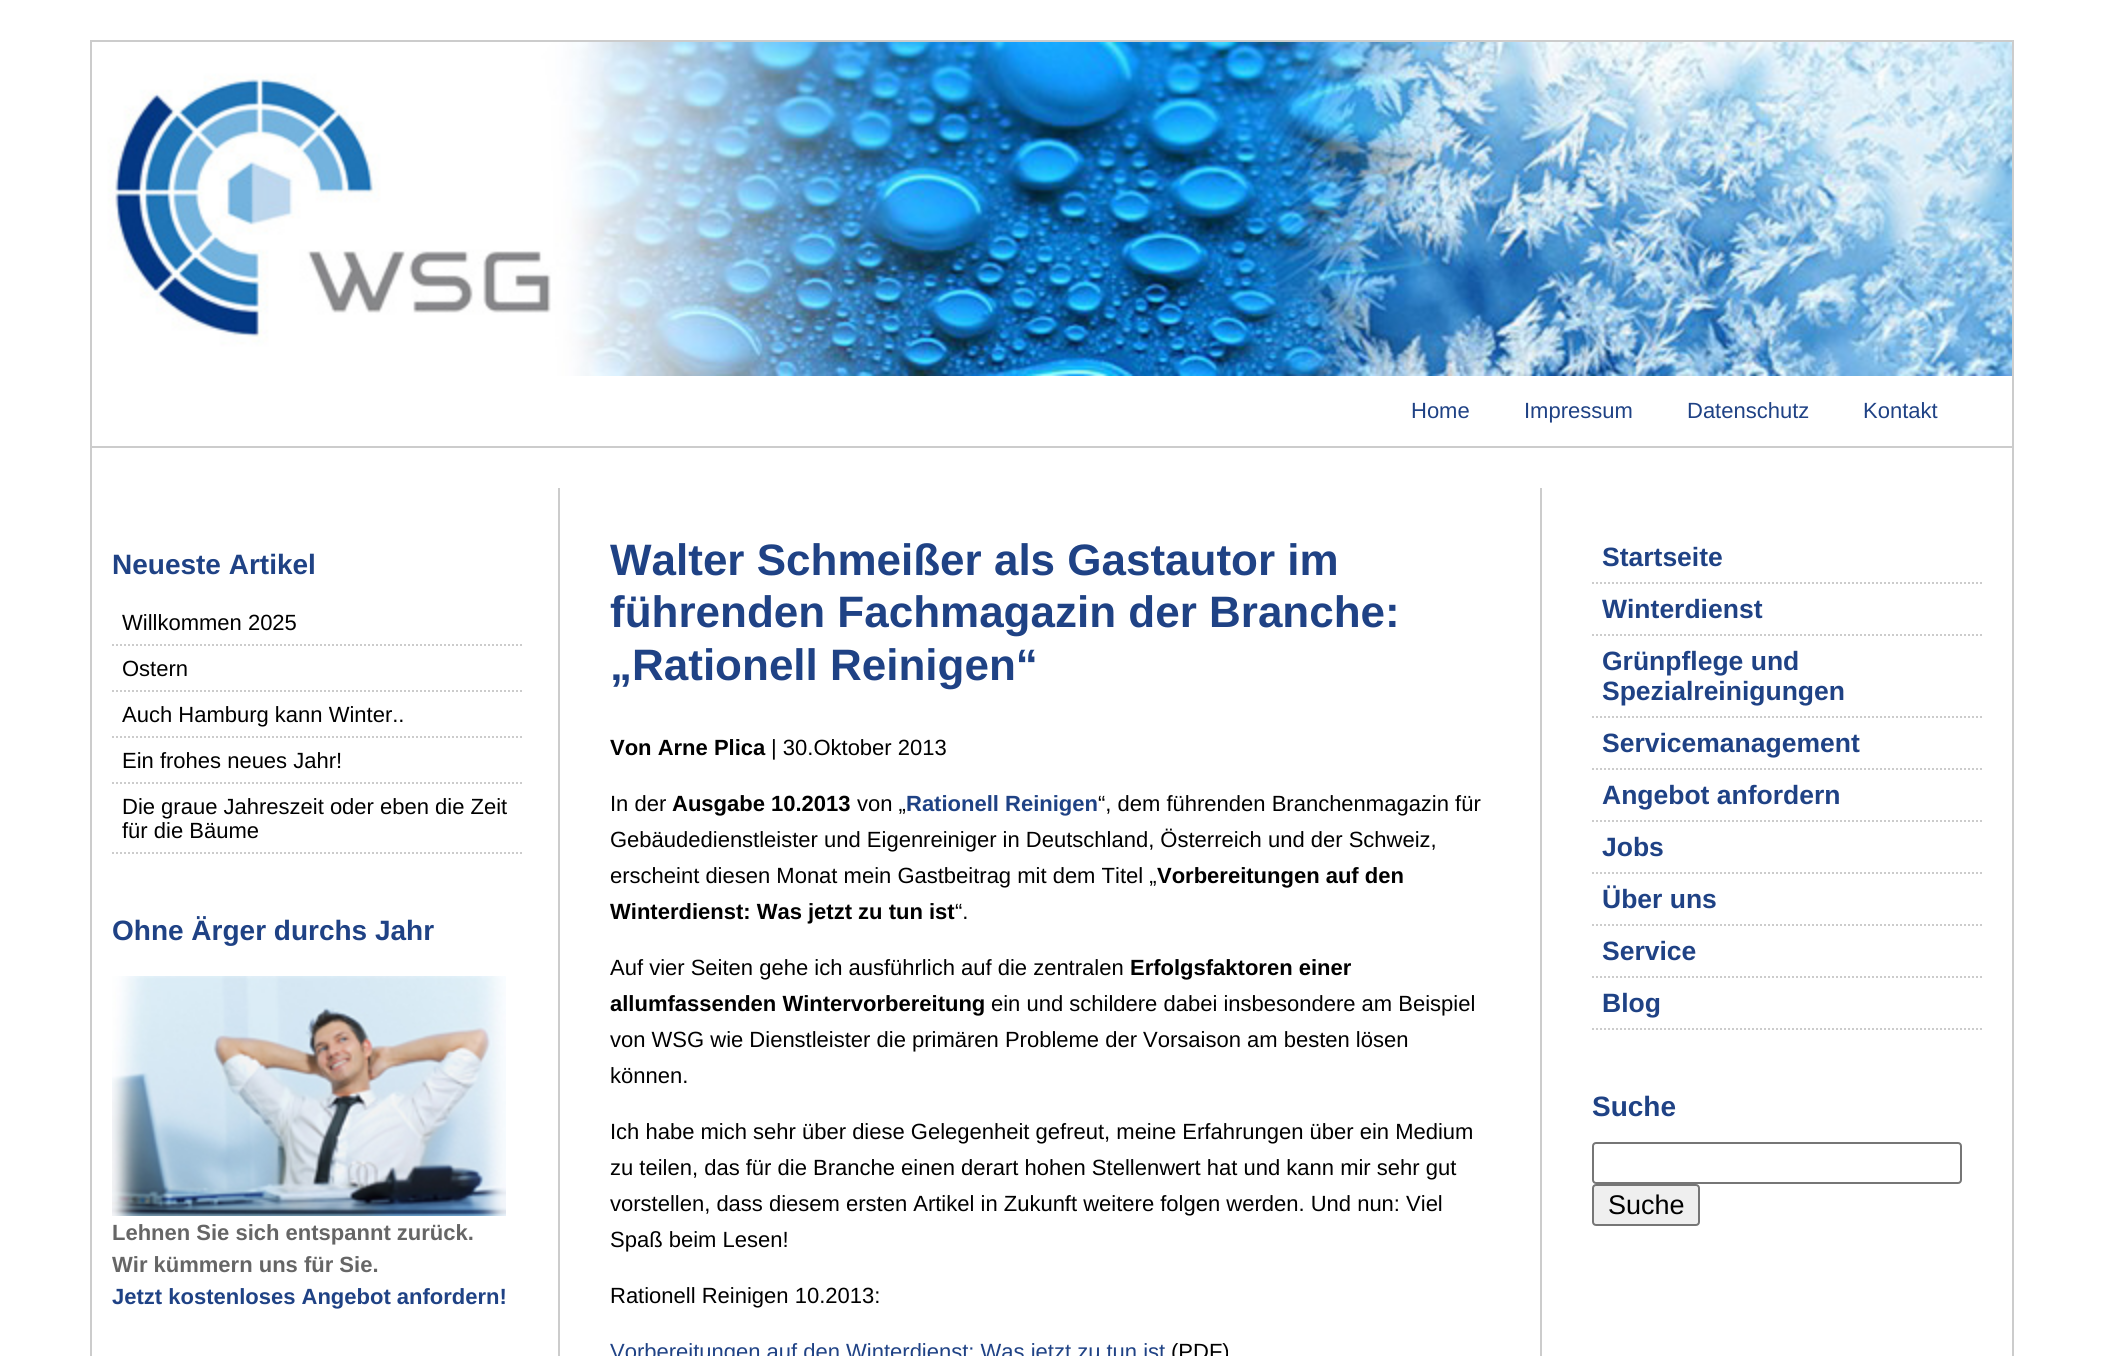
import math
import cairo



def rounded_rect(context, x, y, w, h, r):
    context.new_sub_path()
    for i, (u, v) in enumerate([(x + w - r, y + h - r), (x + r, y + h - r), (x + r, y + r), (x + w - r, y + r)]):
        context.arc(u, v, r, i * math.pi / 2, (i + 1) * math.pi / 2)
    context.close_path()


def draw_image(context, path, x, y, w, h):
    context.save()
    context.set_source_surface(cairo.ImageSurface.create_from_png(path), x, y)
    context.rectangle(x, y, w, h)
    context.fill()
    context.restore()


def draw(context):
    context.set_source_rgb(1, 1, 1)
    context.paint()
    context.rectangle(91, 41, 1922, 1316)
    context.set_source_rgb(204 / 255, 204 / 255, 204 / 255)
    context.stroke()
    draw_image(context, "images/1.png", 92, 42, 1920, 334)
    context.rectangle(92, 446, 1920, 2)
    context.fill()
    context.new_path()
    context.move_to(112, 645)
    context.line_to(522, 645)
    context.set_dash([2, 2])
    context.stroke()
    context.new_path()
    context.move_to(112, 691)
    context.line_to(522, 691)
    context.stroke()
    context.new_path()
    context.move_to(112, 737)
    context.line_to(522, 737)
    context.stroke()
    context.new_path()
    context.move_to(112, 783)
    context.line_to(522, 783)
    context.stroke()
    context.new_path()
    context.move_to(112, 853)
    context.line_to(522, 853)
    context.stroke()
    draw_image(context, "images/2.png", 112, 976, 394, 240)
    context.rectangle(1540, 488, 2, 868)
    context.fill()
    context.rectangle(558, 488, 2, 868)
    context.fill()
    context.new_path()
    context.move_to(1592, 583)
    context.line_to(1982, 583)
    context.stroke()
    context.new_path()
    context.move_to(1592, 635)
    context.line_to(1982, 635)
    context.stroke()
    context.new_path()
    context.move_to(1592, 717)
    context.line_to(1982, 717)
    context.stroke()
    context.new_path()
    context.move_to(1592, 769)
    context.line_to(1982, 769)
    context.stroke()
    context.new_path()
    context.move_to(1592, 821)
    context.line_to(1982, 821)
    context.stroke()
    context.new_path()
    context.move_to(1592, 873)
    context.line_to(1982, 873)
    context.stroke()
    context.new_path()
    context.move_to(1592, 925)
    context.line_to(1982, 925)
    context.stroke()
    context.new_path()
    context.move_to(1592, 977)
    context.line_to(1982, 977)
    context.stroke()
    context.new_path()
    context.move_to(1592, 1029)
    context.line_to(1982, 1029)
    context.stroke()
    rounded_rect(context, 1593, 1143, 368, 40, 3)
    context.set_source_rgb(118 / 255, 118 / 255, 118 / 255)
    context.set_dash([])
    context.stroke()
    context.set_source_rgb(239 / 255, 239 / 255, 239 / 255)
    rounded_rect(context, 1593, 1185, 106, 40, 3)
    context.fill_preserve()
    context.set_source_rgb(118 / 255, 118 / 255, 118 / 255)
    context.stroke()
    context.select_font_face("Liberation Sans")
    context.set_font_size(22)
    context.set_source_rgb(31 / 255, 66 / 255, 133 / 255)
    context.move_to(1411, 418)
    context.show_text("Home")
    context.move_to(1524, 418)
    context.show_text("Impressum")
    context.move_to(1687, 418)
    context.show_text("Datenschutz")
    context.move_to(1863, 418)
    context.show_text("Kontakt")
    context.select_font_face("Liberation Sans", cairo.FontSlant.NORMAL, cairo.FontWeight.BOLD)
    context.set_font_size(28)
    context.move_to(112, 574)
    context.show_text("Neueste Artikel")
    context.select_font_face("Liberation Sans")
    context.set_font_size(22)
    context.set_source_rgb(0, 0, 0)
    context.move_to(122, 630)
    context.show_text("Willkommen 2025")
    context.move_to(122, 676)
    context.show_text("Ostern")
    context.move_to(122, 722)
    context.show_text("Auch Hamburg kann Winter..")
    context.move_to(122, 768)
    context.show_text("Ein frohes neues Jahr!")
    context.move_to(122, 814)
    context.show_text("Die graue Jahreszeit oder eben die Zeit")
    context.move_to(122, 838)
    context.show_text("für die Bäume")
    context.select_font_face("Liberation Sans", cairo.FontSlant.NORMAL, cairo.FontWeight.BOLD)
    context.set_font_size(28)
    context.set_source_rgb(31 / 255, 66 / 255, 133 / 255)
    context.move_to(112, 940)
    context.show_text("Ohne Ärger durchs Jahr")
    context.set_font_size(22)
    context.set_source_rgb(102 / 255, 102 / 255, 102 / 255)
    context.move_to(112, 1240)
    context.show_text("Lehnen Sie sich entspannt zurück.")
    context.move_to(112, 1272)
    context.show_text("Wir kümmern uns für Sie.")
    context.set_source_rgb(31 / 255, 66 / 255, 133 / 255)
    context.move_to(112, 1304)
    context.show_text("Jetzt kostenloses Angebot anfordern!")
    context.set_font_size(44)
    context.move_to(610, 575)
    context.show_text("Walter Schmeißer als Gastautor im")
    context.move_to(610, 627)
    context.show_text("führenden Fachmagazin der Branche:")
    context.move_to(610, 680)
    context.show_text("„Rationell Reinigen“")
    context.set_font_size(22)
    context.set_source_rgb(0, 0, 0)
    context.move_to(610, 755)
    context.show_text("Von Arne Plica")
    context.select_font_face("Liberation Sans")
    context.move_to(771, 755)
    context.show_text("| 30.Oktober 2013")
    context.move_to(610, 811)
    context.show_text("In der")
    context.select_font_face("Liberation Sans", cairo.FontSlant.NORMAL, cairo.FontWeight.BOLD)
    context.move_to(672, 811)
    context.show_text("Ausgabe 10.2013")
    context.select_font_face("Liberation Sans")
    context.move_to(857, 811)
    context.show_text("von „")
    context.select_font_face("Liberation Sans", cairo.FontSlant.NORMAL, cairo.FontWeight.BOLD)
    context.set_source_rgb(31 / 255, 66 / 255, 133 / 255)
    context.move_to(906, 811)
    context.show_text("Rationell Reinigen")
    context.select_font_face("Liberation Sans")
    context.set_source_rgb(0, 0, 0)
    context.move_to(1098, 811)
    context.show_text("“, dem führenden Branchenmagazin für")
    context.move_to(610, 847)
    context.show_text("Gebäudedienstleister und Eigenreiniger in Deutschland, Österreich und der Schweiz,")
    context.move_to(610, 883)
    context.show_text("erscheint diesen Monat mein Gastbeitrag mit dem Titel „")
    context.select_font_face("Liberation Sans", cairo.FontSlant.NORMAL, cairo.FontWeight.BOLD)
    context.move_to(1157, 883)
    context.show_text("Vorbereitungen auf den")
    context.move_to(610, 919)
    context.show_text("Winterdienst: Was jetzt zu tun ist")
    context.select_font_face("Liberation Sans")
    context.move_to(955, 919)
    context.show_text("“.")
    context.move_to(610, 975)
    context.show_text("Auf vier Seiten gehe ich ausführlich auf die zentralen")
    context.select_font_face("Liberation Sans", cairo.FontSlant.NORMAL, cairo.FontWeight.BOLD)
    context.move_to(1130, 975)
    context.show_text("Erfolgsfaktoren einer")
    context.move_to(610, 1011)
    context.show_text("allumfassenden Wintervorbereitung")
    context.select_font_face("Liberation Sans")
    context.move_to(991, 1011)
    context.show_text("ein und schildere dabei insbesondere am Beispiel")
    context.move_to(610, 1047)
    context.show_text("von WSG wie Dienstleister die primären Probleme der Vorsaison am besten lösen")
    context.move_to(610, 1083)
    context.show_text("können.")
    context.move_to(610, 1139)
    context.show_text("Ich habe mich sehr über diese Gelegenheit gefreut, meine Erfahrungen über ein Medium")
    context.move_to(610, 1175)
    context.show_text("zu teilen, das für die Branche einen derart hohen Stellenwert hat und kann mir sehr gut")
    context.move_to(610, 1211)
    context.show_text("vorstellen, dass diesem ersten Artikel in Zukunft weitere folgen werden. Und nun: Viel")
    context.move_to(610, 1247)
    context.show_text("Spaß beim Lesen!")
    context.move_to(610, 1303)
    context.show_text("Rationell Reinigen 10.2013:")
    context.set_source_rgb(31 / 255, 66 / 255, 133 / 255)
    context.move_to(610, 1359)
    context.show_text("Vorbereitungen auf den Winterdienst: Was jetzt zu tun ist")
    context.set_source_rgb(0, 0, 0)
    context.move_to(1171, 1359)
    context.show_text("(PDF)")
    context.select_font_face("Liberation Sans", cairo.FontSlant.NORMAL, cairo.FontWeight.BOLD)
    context.set_font_size(26.5)
    context.set_source_rgb(31 / 255, 66 / 255, 133 / 255)
    context.move_to(1602, 566)
    context.show_text("Startseite")
    context.move_to(1602, 618)
    context.show_text("Winterdienst")
    context.move_to(1602, 670)
    context.show_text("Grünpflege und")
    context.move_to(1602, 700)
    context.show_text("Spezialreinigungen")
    context.move_to(1602, 752)
    context.show_text("Servicemanagement")
    context.move_to(1602, 804)
    context.show_text("Angebot anfordern")
    context.move_to(1602, 856)
    context.show_text("Jobs")
    context.move_to(1602, 908)
    context.show_text("Über uns")
    context.move_to(1602, 960)
    context.show_text("Service")
    context.move_to(1602, 1012)
    context.show_text("Blog")
    context.set_font_size(28)
    context.move_to(1592, 1116)
    context.show_text("Suche")
    context.select_font_face("Liberation Sans")
    context.set_font_size(27)
    context.set_source_rgb(0, 0, 0)
    context.move_to(1608, 1214)
    context.show_text("Suche")


surface = cairo.ImageSurface(cairo.Format.RGB24, 2103, 1356)
context = cairo.Context(surface)
options = cairo.FontOptions()
options.set_hint_metrics(cairo.HintMetrics.OFF)
options.set_hint_style(cairo.HintStyle.NONE)
context.set_font_options(options)
context.set_miter_limit(4)
draw(context)
surface.write_to_png("out.png")
